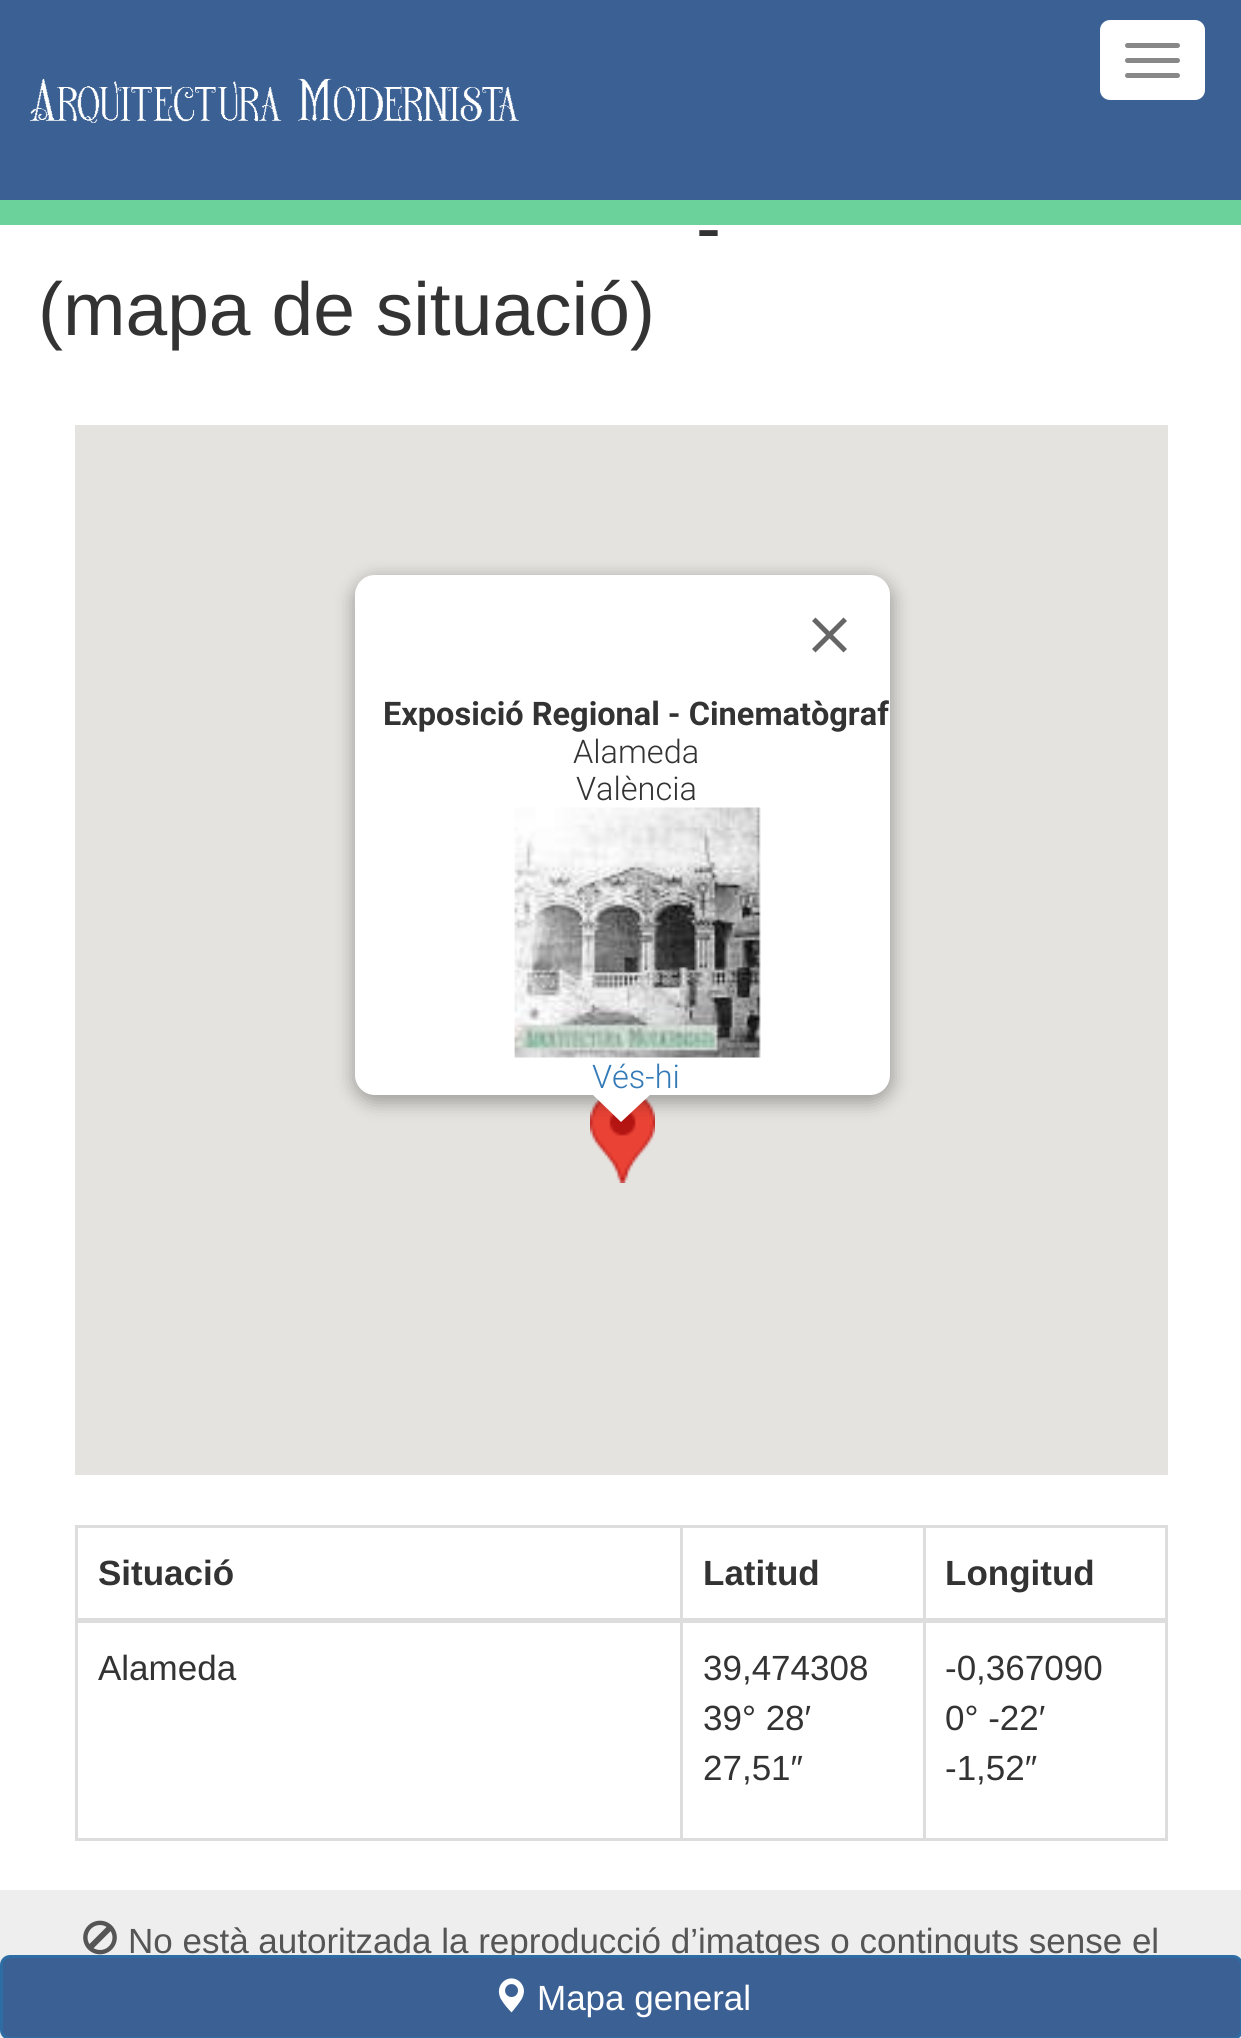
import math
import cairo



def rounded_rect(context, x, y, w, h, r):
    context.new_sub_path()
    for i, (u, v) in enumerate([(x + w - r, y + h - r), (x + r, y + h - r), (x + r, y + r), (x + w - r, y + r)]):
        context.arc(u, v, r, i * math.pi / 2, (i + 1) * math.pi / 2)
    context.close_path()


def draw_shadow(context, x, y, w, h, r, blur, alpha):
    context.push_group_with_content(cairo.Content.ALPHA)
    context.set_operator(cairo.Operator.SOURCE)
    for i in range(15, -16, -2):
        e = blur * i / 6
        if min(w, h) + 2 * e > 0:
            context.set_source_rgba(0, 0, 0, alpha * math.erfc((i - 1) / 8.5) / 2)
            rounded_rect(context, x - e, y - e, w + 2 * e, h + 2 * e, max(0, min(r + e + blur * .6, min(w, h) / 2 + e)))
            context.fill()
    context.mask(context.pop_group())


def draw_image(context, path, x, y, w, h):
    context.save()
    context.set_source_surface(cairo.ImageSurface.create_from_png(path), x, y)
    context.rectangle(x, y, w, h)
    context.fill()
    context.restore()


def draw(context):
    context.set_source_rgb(1, 1, 1)
    context.paint()
    context.set_source_rgb(59 / 255, 96 / 255, 148 / 255)
    context.rectangle(0, 0, 1241, 200)
    context.fill()
    context.set_source_rgb(107 / 255, 210 / 255, 155 / 255)
    context.rectangle(0, 200, 1241, 25)
    context.fill()
    draw_image(context, "images/1.png", 30, 78, 489, 45)
    context.set_source_rgb(1, 1, 1)
    rounded_rect(context, 1100, 20, 105, 80, 10)
    context.fill()
    context.set_source_rgb(136 / 255, 136 / 255, 136 / 255)
    rounded_rect(context, 1125, 43, 55, 5, 2.5)
    context.fill()
    rounded_rect(context, 1125, 58, 55, 5, 2.5)
    context.fill()
    rounded_rect(context, 1125, 73, 55, 5, 2.5)
    context.fill()
    context.set_source_rgb(229 / 255, 227 / 255, 223 / 255)
    context.rectangle(75, 425, 1093, 1050)
    context.fill()
    draw_image(context, "images/3.png", 590, 1097, 65, 86)
    context.set_source_rgb(0, 0, 0)
    draw_shadow(context, 353, 578, 540, 525, 23, 9, 0.3)
    context.set_source_rgb(1, 1, 1)
    rounded_rect(context, 355, 575, 535, 520, 20)
    context.fill()
    context.set_source_rgb(102 / 255, 102 / 255, 102 / 255)
    context.new_path()
    context.move_to(847, 621)
    context.line_to(843.5, 617.5)
    context.line_to(829.5, 631.5)
    context.line_to(815.5, 617.5)
    context.line_to(812, 621)
    context.line_to(826, 635)
    context.line_to(812, 649)
    context.line_to(815.5, 652.5)
    context.line_to(829.5, 638.5)
    context.line_to(843.5, 652.5)
    context.line_to(847, 649)
    context.line_to(833, 635)
    context.close_path()
    context.fill()
    draw_image(context, "images/2.png", 514, 807, 247, 251)
    context.set_source_rgb(1, 1, 1)
    context.new_path()
    context.move_to(593, 1093)
    context.line_to(593, 1095)
    context.line_to(621, 1122)
    context.line_to(652, 1093)
    context.close_path()
    context.fill()
    context.set_source_rgb(221 / 255, 221 / 255, 221 / 255)
    context.rectangle(75, 1525, 1093, 3)
    context.fill()
    context.rectangle(1165, 1525, 3, 315)
    context.fill()
    context.rectangle(75, 1838, 1093, 3)
    context.fill()
    context.rectangle(75, 1525, 3, 315)
    context.fill()
    context.rectangle(680, 1525, 3, 315)
    context.fill()
    context.rectangle(923, 1525, 3, 315)
    context.fill()
    context.rectangle(75, 1618, 1093, 5)
    context.fill()
    context.set_source_rgb(238 / 255, 238 / 255, 238 / 255)
    context.rectangle(0, 1890, 1241, 148)
    context.fill()
    draw_image(context, "images/4.png", 83, 1920, 34, 35)
    context.select_font_face("Liberation Sans")
    context.set_font_size(75)
    context.set_source_rgb(51 / 255, 51 / 255, 51 / 255)
    context.move_to(696, 253)
    context.show_text("-")
    context.move_to(38, 335)
    context.show_text("(mapa de situació)")
    context.select_font_face("Roboto", cairo.FontSlant.NORMAL, cairo.FontWeight.BOLD)
    context.set_font_size(32.5)
    context.move_to(383, 725)
    context.show_text("Exposició Regional - Cinematògraf")
    context.select_font_face("Roboto Light")
    context.move_to(573, 763)
    context.show_text("Alameda")
    context.move_to(576, 800)
    context.show_text("València")
    context.set_source_rgb(51 / 255, 122 / 255, 183 / 255)
    context.move_to(592, 1088)
    context.show_text("Vés-hi")
    context.select_font_face("Liberation Sans", cairo.FontSlant.NORMAL, cairo.FontWeight.BOLD)
    context.set_font_size(35)
    context.set_source_rgb(51 / 255, 51 / 255, 51 / 255)
    context.move_to(98, 1585)
    context.show_text("Situació")
    context.move_to(703, 1585)
    context.show_text("Latitud")
    context.move_to(945, 1585)
    context.show_text("Longitud")
    context.select_font_face("Liberation Sans")
    context.move_to(98, 1680)
    context.show_text("Alameda")
    context.move_to(703, 1680)
    context.show_text("39,474308")
    context.move_to(703, 1730)
    context.show_text("39° 28′")
    context.move_to(703, 1780)
    context.show_text("27,51″")
    context.move_to(945, 1680)
    context.show_text("-0,367090")
    context.move_to(945, 1730)
    context.show_text("0° -22′")
    context.move_to(945, 1780)
    context.show_text("-1,52″")
    context.set_source_rgb(85 / 255, 85 / 255, 85 / 255)
    context.move_to(128, 1953)
    context.show_text("No està autoritzada la reproducció d’imatges o continguts sense el")
    context.set_source_rgb(59 / 255, 96 / 255, 148 / 255)
    rounded_rect(context, 1.5, 1956.5, 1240, 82, 8.5)
    context.fill_preserve()
    context.set_source_rgb(46 / 255, 109 / 255, 164 / 255)
    context.set_line_width(3)
    context.stroke()
    draw_image(context, "images/5.png", 498, 1978, 26, 35)
    context.set_source_rgb(1, 1, 1)
    context.move_to(537, 2010)
    context.show_text("Mapa general")


surface = cairo.ImageSurface(cairo.Format.RGB24, 1241, 2038)
context = cairo.Context(surface)
options = cairo.FontOptions()
options.set_hint_metrics(cairo.HintMetrics.OFF)
options.set_hint_style(cairo.HintStyle.NONE)
context.set_font_options(options)
context.set_miter_limit(4)
draw(context)
surface.write_to_png("out.png")
